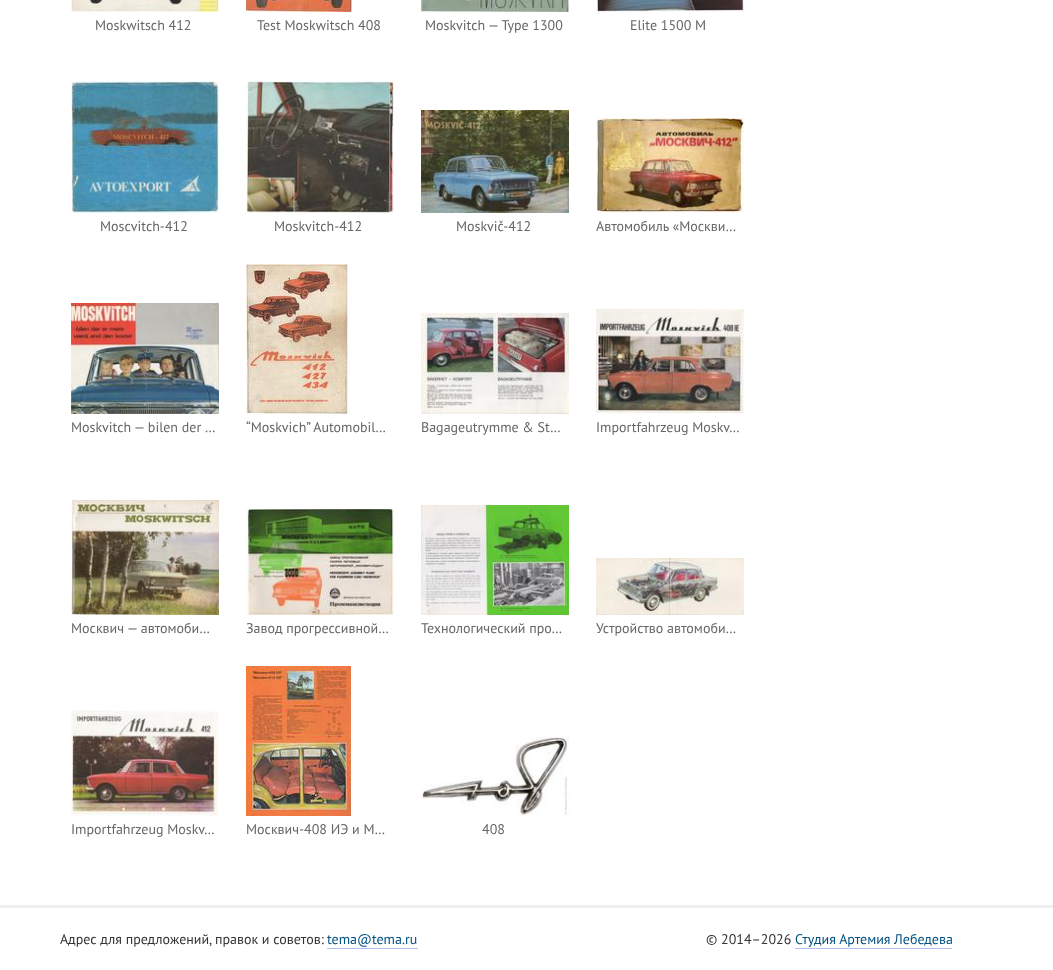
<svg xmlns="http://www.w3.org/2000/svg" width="1053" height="970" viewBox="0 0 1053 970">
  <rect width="100%" height="100%" fill="#fff"/>
  <image x="71" y="0" width="148" height="12" href="img/1.png"/>
  <image x="246" y="0" width="106" height="12" href="img/2.png"/>
  <image x="421" y="0" width="148" height="12" href="img/3.png"/>
  <image x="596" y="0" width="148" height="12" href="img/4.png"/>
  <image x="71" y="81" width="148" height="132" href="img/5.png"/>
  <image x="246" y="81" width="148" height="132" href="img/6.png"/>
  <image x="421" y="110" width="148" height="103" href="img/7.png"/>
  <image x="596" y="118" width="148" height="95" href="img/8.png"/>
  <image x="71" y="303" width="148" height="111" href="img/9.png"/>
  <image x="246" y="264" width="102" height="150" href="img/10.png"/>
  <image x="421" y="313" width="148" height="101" href="img/11.png"/>
  <image x="596" y="308" width="148" height="106" href="img/12.png"/>
  <image x="71" y="500" width="148" height="115" href="img/13.png"/>
  <image x="246" y="509" width="148" height="106" href="img/14.png"/>
  <image x="421" y="505" width="148" height="110" href="img/15.png"/>
  <image x="596" y="558" width="148" height="57" href="img/16.png"/>
  <image x="71" y="710" width="148" height="106" href="img/17.png"/>
  <image x="246" y="666" width="105" height="150" href="img/18.png"/>
  <image x="421" y="736" width="148" height="80" href="img/19.png"/>
  <path d="M0 905h1053v3H0z" fill="#eee"/>
  <path d="M327 948h91v1H327z" fill="#b0c0f0"/>
  <path d="M795 948h157v1H795z" fill="#b0c0f0"/>
  <g font-family="PT Sans" font-size="14" fill="#666">
    <text x="95" y="30">Moskwitsch 412</text>
    <text x="257" y="30">Test Moskwitsch 408</text>
    <text x="425" y="30">Moskvitch — Type 1300</text>
    <text x="630" y="30">Elite 1500 M</text>
    <text x="100" y="231">Moscvitch-412</text>
    <text x="274" y="231">Moskvitch-412</text>
    <text x="456" y="231">Moskvič-412</text>
    <text x="596" y="231">Автомобиль «Москви…</text>
    <text x="71" y="432">Moskvitch — bilen der …</text>
    <text x="246" y="432">“Moskvich” Automobil…</text>
    <text x="421" y="432">Bagageutrymme &amp; St…</text>
    <text x="596" y="432">Importfahrzeug Moskv…</text>
    <text x="71" y="633">Москвич — автомоби…</text>
    <text x="246" y="633">Завод прогрессивной…</text>
    <text x="421" y="633">Технологический про…</text>
    <text x="596" y="633">Устройство автомоби…</text>
    <text x="71" y="834">Importfahrzeug Moskv…</text>
    <text x="246" y="834">Москвич-408 ИЭ и М…</text>
    <text x="482" y="834">408</text>
  </g>
  <text x="60" y="944" font-family="PT Sans" font-size="14" fill="#333">Адрес для предложений, правок и советов:</text>
  <text x="327" y="944" font-family="PT Sans" font-size="14" fill="#005080">tema@tema.ru</text>
  <text x="706" y="944" font-family="PT Sans" font-size="14" fill="#333">© 2014–2026</text>
  <text x="795" y="944" font-family="PT Sans" font-size="14" fill="#005080">Студия Артемия Лебедева</text>
</svg>
